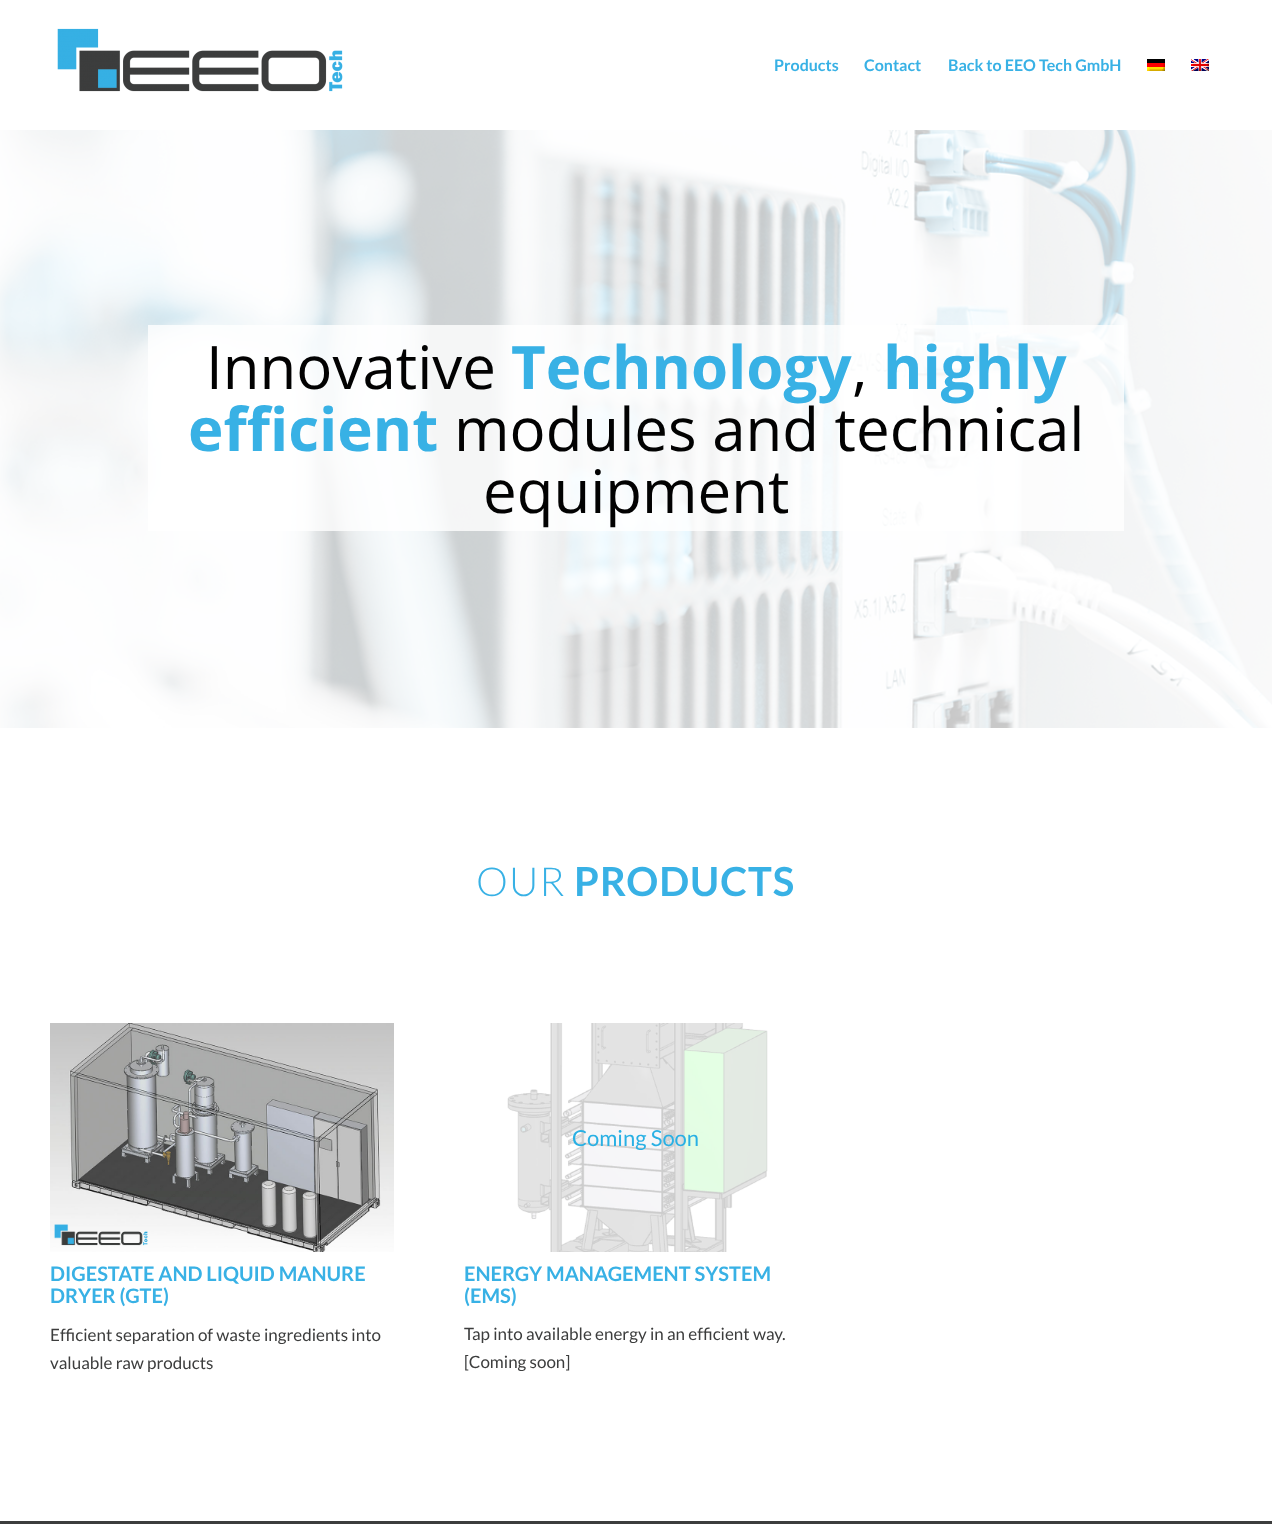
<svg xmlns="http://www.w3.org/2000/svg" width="1272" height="1524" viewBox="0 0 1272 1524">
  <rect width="100%" height="100%" fill="#fff"/>
  <image x="57" y="28" width="286" height="64" href="img/1.png"/>
  <image x="1147" y="59" width="18" height="12" href="img/2.png"/>
  <image x="1191" y="59" width="18" height="12" href="img/3.png"/>
  <image x="0" y="130" width="1272" height="598" href="img/4.png"/>
  <path d="M148 325h976v206H148z" fill="#ffffffc9"/>
  <image x="50" y="1023" width="344" height="229" href="img/5.png"/>
  <image x="507" y="1023" width="261" height="229" href="img/6.png"/>
  <path d="M0 1521h1272v3H0z" fill="#3c3d3d"/>
  <g font-family="Lato" font-size="16" font-weight="bold" fill="#38b1e5">
    <text x="774" y="71">Products</text>
    <text x="864" y="71">Contact</text>
    <text x="948" y="71">Back to EEO Tech GmbH</text>
  </g>
  <text x="206" y="389" font-family="Open Sans" font-size="60" fill="#020202">Innovative</text>
  <text x="511" y="389" font-family="Open Sans" font-size="60" font-weight="bold" fill="#38b1e5">Technology</text>
  <text x="852" y="389" font-family="Open Sans" font-size="60" fill="#020202">,</text>
  <g font-family="Open Sans" font-size="60" font-weight="bold" fill="#38b1e5">
    <text x="883" y="389">highly</text>
    <text x="188" y="451">efficient</text>
  </g>
  <g font-family="Open Sans" font-size="60" fill="#020202">
    <text x="454" y="451">modules and technical</text>
    <text x="483" y="513">equipment</text>
  </g>
  <text x="476" y="896" font-family="Lato" font-size="40" font-weight="300" letter-spacing="1" fill="#38b1e5">OUR</text>
  <text x="574" y="896" font-family="Lato" font-size="40" font-weight="bold" letter-spacing="1" fill="#38b1e5">PRODUCTS</text>
  <g font-family="Lato" font-size="20" font-weight="bold" fill="#38b1e5">
    <text x="50" y="1281">DIGESTATE AND LIQUID MANURE</text>
    <text x="50" y="1303">DRYER (GTE)</text>
  </g>
  <g font-family="Lato" font-size="17" fill="#3c3d3d">
    <text x="50" y="1341">Efficient separation of waste ingredients into</text>
    <text x="50" y="1369">valuable raw products</text>
  </g>
  <text x="572" y="1146" font-family="Lato" font-size="22" fill="#29b0e4">Coming Soon</text>
  <g font-family="Lato" font-size="20" font-weight="bold" fill="#38b1e5">
    <text x="464" y="1281">ENERGY MANAGEMENT SYSTEM</text>
    <text x="464" y="1303">(EMS)</text>
  </g>
  <g font-family="Lato" font-size="17" fill="#3c3d3d">
    <text x="464" y="1340">Tap into available energy in an efficient way.</text>
    <text x="464" y="1368">[Coming soon]</text>
  </g>
</svg>
